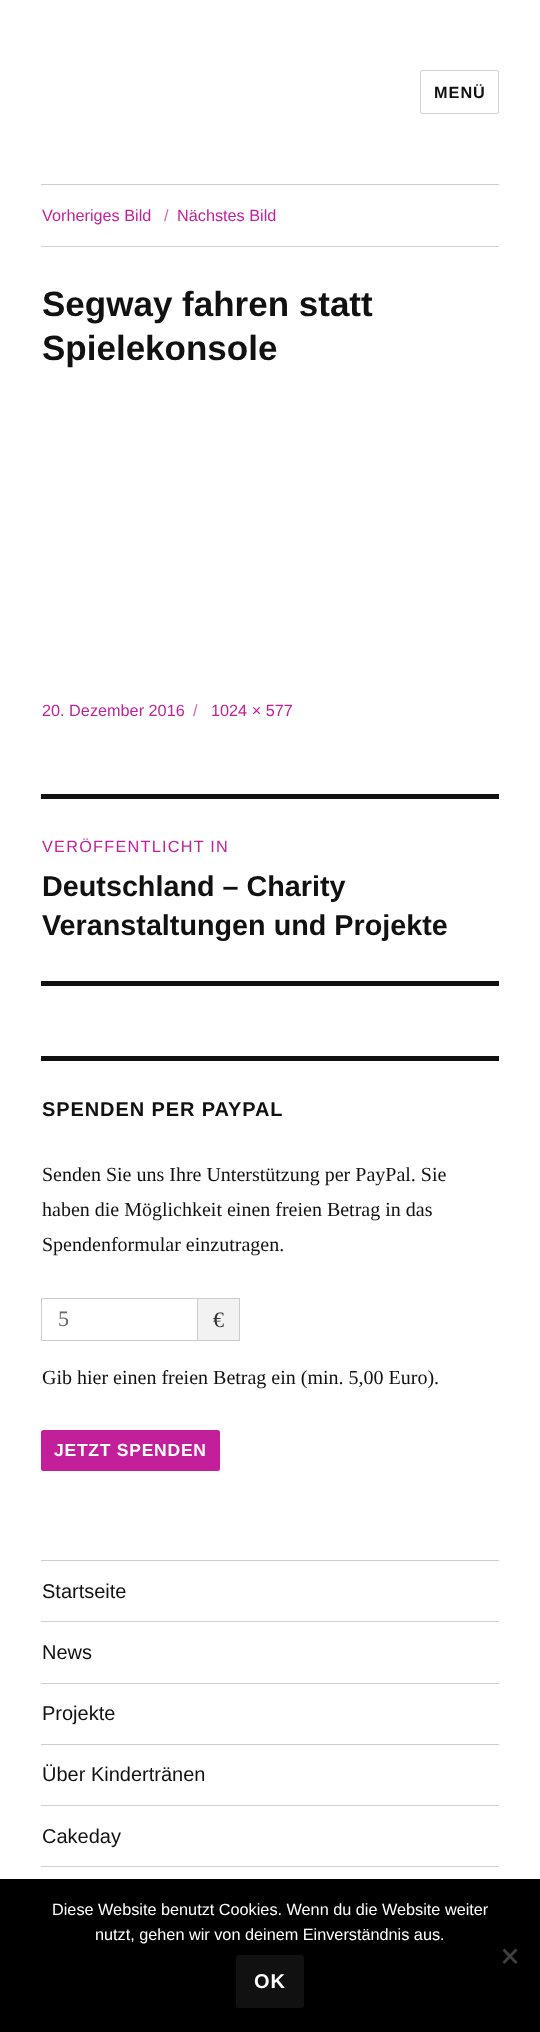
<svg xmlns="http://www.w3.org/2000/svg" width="540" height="2032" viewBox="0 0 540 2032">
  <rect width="100%" height="100%" fill="#fff"/>
  <rect x="420.5" y="70.5" width="78" height="43" rx="2" fill="none" stroke="#cfcfcf"/>
  <path d="M41 184h458v1H41z" fill="#cfcfcf"/>
  <path d="M41 246h458v1H41z" fill="#cfcfcf"/>
  <path d="M41 794h458v5H41z" fill="#111"/>
  <path d="M41 981h458v5H41z" fill="#111"/>
  <path d="M41 1056h458v5H41z" fill="#111"/>
  <path d="M41.5 1298.5h156v42H41.5z" fill="none" stroke="#ccc"/>
  <path d="M198 1299h41v41H198z" fill="#f2f2f2"/>
  <path d="M198 1298h42v1H198z" fill="#ccc"/>
  <path d="M239 1298h1v43H239z" fill="#ccc"/>
  <path d="M198 1340h42v1H198z" fill="#ccc"/>
  <rect x="41" y="1430" width="179" height="41" rx="2.5" fill="#c41f9b"/>
  <path d="M41 1560h458v1H41z" fill="#cfcfcf"/>
  <path d="M41 1621h458v1H41z" fill="#cfcfcf"/>
  <path d="M41 1683h458v1H41z" fill="#cfcfcf"/>
  <path d="M41 1744h458v1H41z" fill="#cfcfcf"/>
  <path d="M41 1805h458v1H41z" fill="#cfcfcf"/>
  <path d="M41 1866h458v1H41z" fill="#cfcfcf"/>
  <path d="M0 1879h540v153H0z" fill="#000"/>
  <path d="M515.5 1948.5L517.5 1950.5L504.5 1964L502.5 1962Z" fill="#404040"/>
  <path d="M502.5 1950.5L504.5 1948.5L517.5 1962L515.5 1964Z" fill="#404040"/>
  <rect x="236" y="1955" width="68" height="53" rx="2.5" fill="#111"/>
  <text x="434" y="98" font-family="Liberation Sans" font-size="16.25" font-weight="bold" letter-spacing="1" fill="#111">MENÜ</text>
  <text x="42" y="221" font-family="Liberation Sans" font-size="16.25" fill="#c41f9b">Vorheriges Bild</text>
  <text x="164" y="221" font-family="Liberation Sans" font-size="16.25" fill="#d662b9">/</text>
  <text x="177" y="221" font-family="Liberation Sans" font-size="16.25" fill="#c41f9b">Nächstes Bild</text>
  <g font-family="Liberation Sans" font-size="35" font-weight="bold" fill="#111">
    <text x="42" y="316">Segway fahren statt</text>
    <text x="42" y="360">Spielekonsole</text>
  </g>
  <text x="42" y="716" font-family="Liberation Sans" font-size="16.25" fill="#c41f9b">20. Dezember 2016</text>
  <text x="193" y="716" font-family="Liberation Sans" font-size="16.25" fill="#d662b9">/</text>
  <text x="211" y="716" font-family="Liberation Sans" font-size="16.25" fill="#c41f9b">1024 × 577</text>
  <text x="42" y="852" font-family="Liberation Sans" font-size="16.25" letter-spacing="1.25" fill="#c41f9b">VERÖFFENTLICHT IN</text>
  <g font-family="Liberation Sans" font-size="28.75" font-weight="bold" fill="#111">
    <text x="42" y="896">Deutschland – Charity</text>
    <text x="42" y="935">Veranstaltungen und Projekte</text>
  </g>
  <text x="42" y="1116" font-family="Liberation Sans" font-size="20" font-weight="bold" letter-spacing="0.9" fill="#111">SPENDEN PER PAYPAL</text>
  <g font-family="Liberation Serif" font-size="20" fill="#111">
    <text x="42" y="1181">Senden Sie uns Ihre Unterstützung per PayPal. Sie</text>
    <text x="42" y="1216">haben die Möglichkeit einen freien Betrag in das</text>
    <text x="42" y="1251">Spendenformular einzutragen.</text>
  </g>
  <text x="58" y="1326" font-family="Liberation Serif" font-size="22" fill="#686868">5</text>
  <text x="213" y="1327" font-family="Liberation Serif" font-size="22" fill="#333">€</text>
  <text x="42" y="1384" font-family="Liberation Serif" font-size="20" fill="#111">Gib hier einen freien Betrag ein (min. 5,00 Euro).</text>
  <text x="54" y="1456" font-family="Liberation Sans" font-size="17.5" font-weight="bold" letter-spacing="0.75" fill="#fff">JETZT SPENDEN</text>
  <g font-family="Liberation Sans" font-size="20" fill="#111">
    <text x="42" y="1598">Startseite</text>
    <text x="42" y="1659">News</text>
    <text x="42" y="1720">Projekte</text>
    <text x="42" y="1781">Über Kindertränen</text>
    <text x="42" y="1843">Cakeday</text>
  </g>
  <g font-family="Liberation Sans" font-size="16.25" fill="#fff">
    <text x="52" y="1915">Diese Website benutzt Cookies. Wenn du die Website weiter</text>
    <text x="95" y="1940">nutzt, gehen wir von deinem Einverständnis aus.</text>
  </g>
  <text x="254" y="1988" font-family="Liberation Sans" font-size="20" font-weight="bold" letter-spacing="0.9" fill="#fff">OK</text>
</svg>
